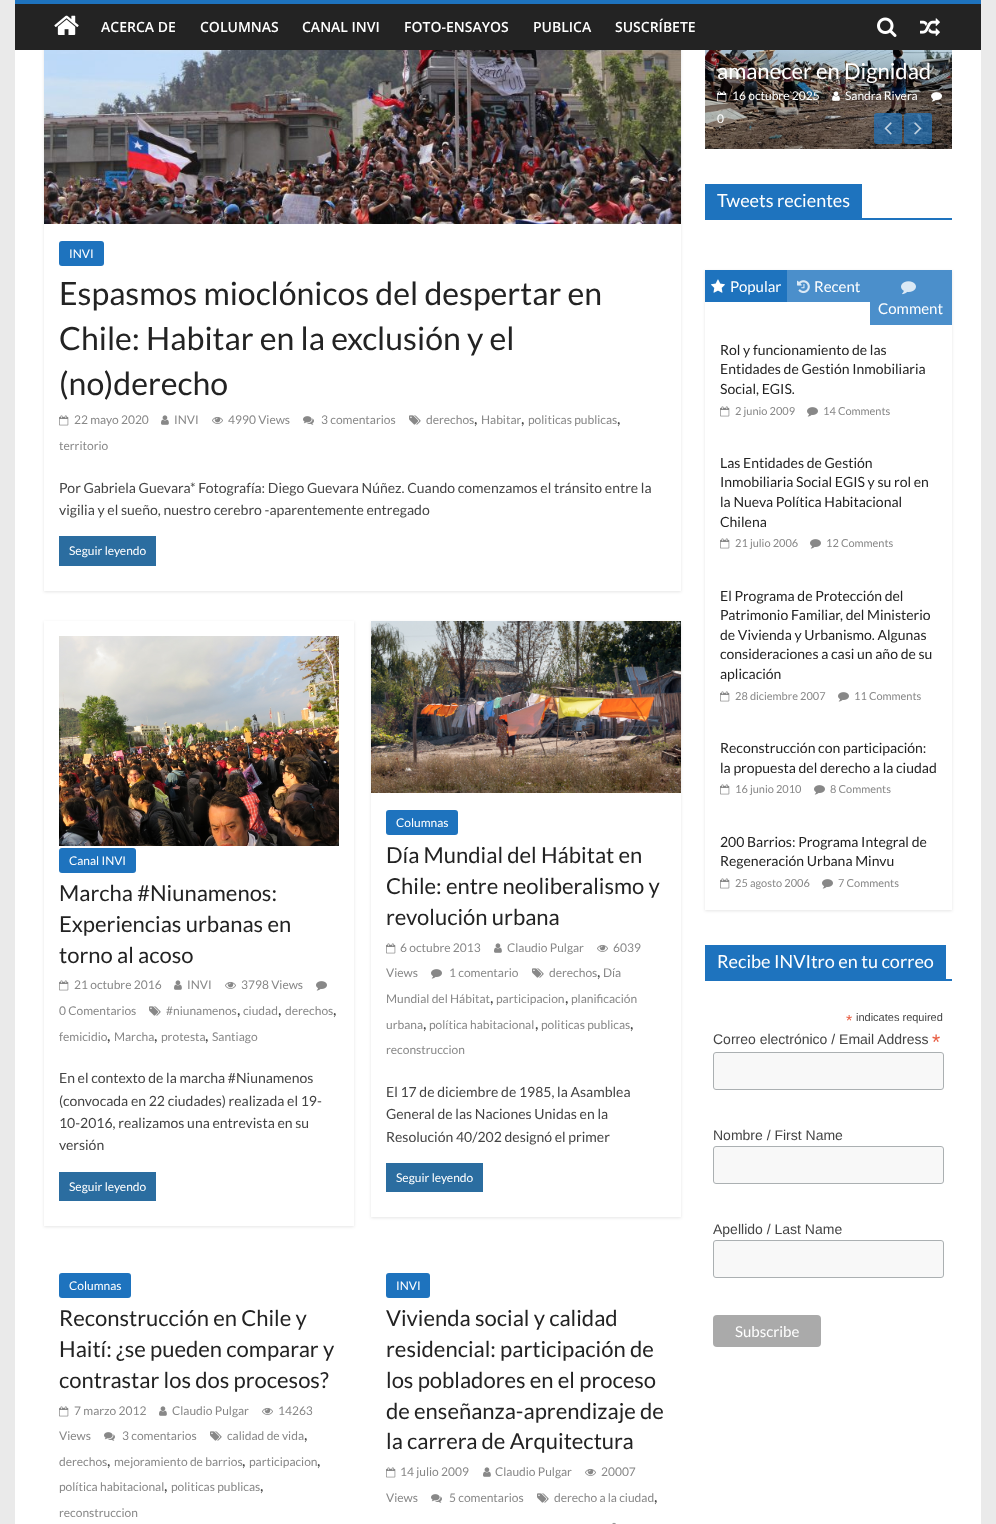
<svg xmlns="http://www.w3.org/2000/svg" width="996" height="1524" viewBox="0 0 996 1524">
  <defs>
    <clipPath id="clip1"><path d="M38 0H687V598H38ZM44-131H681V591H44Z" clip-rule="evenodd"/></clipPath>
    <clipPath id="clip2"><path d="M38 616H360V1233H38ZM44 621H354V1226H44Z" clip-rule="evenodd"/></clipPath>
    <clipPath id="clip3"><path d="M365 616H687V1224H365ZM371 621H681V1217H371Z" clip-rule="evenodd"/></clipPath>
    <linearGradient id="g1" gradientUnits="userSpaceOnUse" x1="829" y1="-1" x2="829" y2="149"><stop offset="0" stop-color="#000" stop-opacity="0"/><stop offset="1" stop-color="#000" stop-opacity="0.3"/></linearGradient>
    <clipPath id="clip4"><path d="M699 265H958V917H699ZM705 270H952V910H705Z" clip-rule="evenodd"/></clipPath>
  </defs>
  <rect width="100%" height="100%" fill="#eaeaea"/>
  <path d="M15 50h966v1474H15z" fill="#fff"/>
  <g clip-path="url(#clip1)">
    <path d="M44 -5h637v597H44z" fill="#0000001a" filter="blur(1.5px)"/>
  </g>
  <path d="M15 4h966v46H15z" fill="#232323"/>
  <path d="M15 0h966v4H15z" fill="#1e73be"/>
  <image x="54" y="15" width="25" height="20" href="img/1.png"/>
  <image x="877" y="17" width="20" height="20" href="img/2.png"/>
  <image x="920" y="18" width="20" height="18" href="img/3.png"/>
  <image x="44" y="50" width="637" height="174" href="img/4.png"/>
  <rect x="59" y="241" width="45" height="25" rx="3" fill="#1e73be"/>
  <image x="409" y="415" width="12" height="10" href="img/5.png"/>
  <image x="59" y="415" width="10" height="11" href="img/6.png"/>
  <image x="161" y="415" width="8" height="10" href="img/7.png"/>
  <image x="212" y="416" width="11" height="8" href="img/8.png"/>
  <image x="303" y="416" width="11" height="9" href="img/9.png"/>
  <path d="M59 536h97v30H59z" fill="#2b6da0"/>
  <g clip-path="url(#clip2)">
    <path d="M44 622h310v605H44z" fill="#0000001a" filter="blur(1.5px)"/>
  </g>
  <image x="59" y="636" width="280" height="210" href="img/10.png"/>
  <rect x="59" y="848" width="77" height="25" rx="3" fill="#1e73be"/>
  <image x="59" y="980" width="10" height="11" href="img/6.png"/>
  <image x="174" y="980" width="8" height="10" href="img/7.png"/>
  <image x="225" y="981" width="11" height="8" href="img/8.png"/>
  <image x="316" y="981" width="11" height="10" href="img/11.png"/>
  <image x="149" y="1006" width="12" height="10" href="img/5.png"/>
  <path d="M59 1172h97v29H59z" fill="#2b6da0"/>
  <g clip-path="url(#clip3)">
    <path d="M371 622h310v596H371z" fill="#0000001a" filter="blur(1.5px)"/>
  </g>
  <image x="371" y="621" width="310" height="172" href="img/12.png"/>
  <rect x="386" y="810" width="72" height="25" rx="3" fill="#1e73be"/>
  <image x="597" y="944" width="11" height="8" href="img/8.png"/>
  <image x="386" y="943" width="10" height="11" href="img/6.png"/>
  <image x="494" y="943" width="8" height="10" href="img/7.png"/>
  <image x="532" y="968" width="12" height="10" href="img/5.png"/>
  <image x="431" y="969" width="11" height="10" href="img/11.png"/>
  <path d="M386 1163h97v29H386z" fill="#2b6da0"/>
  <rect x="59" y="1273" width="72" height="25" rx="3" fill="#1e73be"/>
  <image x="262" y="1407" width="11" height="8" href="img/8.png"/>
  <image x="59" y="1406" width="10" height="11" href="img/6.png"/>
  <image x="159" y="1406" width="8" height="10" href="img/7.png"/>
  <image x="210" y="1431" width="12" height="10" href="img/5.png"/>
  <image x="104" y="1432" width="11" height="9" href="img/9.png"/>
  <rect x="386" y="1273" width="44" height="25" rx="3" fill="#1e73be"/>
  <image x="585" y="1468" width="11" height="8" href="img/8.png"/>
  <image x="386" y="1467" width="10" height="11" href="img/6.png"/>
  <image x="483" y="1467" width="8" height="10" href="img/7.png"/>
  <image x="431" y="1494" width="11" height="9" href="img/9.png"/>
  <image x="537" y="1493" width="12" height="10" href="img/5.png"/>
  <image x="705" y="53" width="1" height="96" href="img/13.png"/>
  <image x="705" y="50" width="247" height="99" href="img/14.png"/>
  <path d="M705 50h247v99H705z" fill="url(#g1)"/>
  <image x="717" y="91" width="10" height="11" href="img/15.png"/>
  <image x="832" y="91" width="8" height="10" href="img/16.png"/>
  <image x="931" y="92" width="11" height="10" href="img/17.png"/>
  <rect x="874" y="113" width="28" height="31" rx="3" fill="#1e73beb3"/>
  <image x="884" y="122" width="8" height="13" href="img/18.png"/>
  <rect x="904" y="113" width="28" height="31" rx="3" fill="#1e73beb3"/>
  <image x="914" y="122" width="8" height="13" href="img/19.png"/>
  <path d="M705 218h247v2H705z" fill="#1e73be"/>
  <path d="M705 184h157v34H705z" fill="#1e73be"/>
  <g clip-path="url(#clip4)">
    <path d="M705 271h247v640H705z" fill="#0000001a" filter="blur(1.5px)"/>
  </g>
  <path d="M705 270h82v32H705z" fill="#1e73be"/>
  <image x="711" y="279" width="14" height="14" href="img/20.png"/>
  <path d="M787 270h83v32H787z" fill="#4b8fcb"/>
  <image x="797" y="280" width="13" height="14" href="img/21.png"/>
  <path d="M870 270h82v55H870z" fill="#4b8fcb"/>
  <image x="901" y="281" width="15" height="14" href="img/22.png"/>
  <image x="720" y="406" width="10" height="11" href="img/6.png"/>
  <image x="807" y="407" width="11" height="10" href="img/11.png"/>
  <image x="720" y="538" width="10" height="11" href="img/6.png"/>
  <image x="810" y="539" width="11" height="10" href="img/11.png"/>
  <image x="720" y="691" width="10" height="11" href="img/6.png"/>
  <image x="838" y="692" width="11" height="10" href="img/11.png"/>
  <image x="720" y="784" width="10" height="11" href="img/6.png"/>
  <image x="814" y="785" width="11" height="10" href="img/11.png"/>
  <image x="720" y="878" width="10" height="11" href="img/6.png"/>
  <image x="822" y="879" width="11" height="10" href="img/11.png"/>
  <path d="M705 979h247v2H705z" fill="#1e73be"/>
  <path d="M705 945h241v34H705z" fill="#1e73be"/>
  <rect x="713.5" y="1052.5" width="230" height="37" rx="2.5" fill="#f8f8f8" stroke="#abb0b2"/>
  <rect x="713.5" y="1146.5" width="230" height="37" rx="2.5" fill="#f8f8f8" stroke="#abb0b2"/>
  <rect x="713.5" y="1240.5" width="230" height="37" rx="2.5" fill="#f8f8f8" stroke="#abb0b2"/>
  <rect x="713" y="1315" width="108" height="32" rx="4" fill="#aaa"/>
  <g font-family="Open Sans" font-size="14" font-weight="600" fill="#fff">
    <text x="101" y="32">ACERCA DE</text>
    <text x="200" y="32">COLUMNAS</text>
    <text x="302" y="32">CANAL INVI</text>
    <text x="404" y="32">FOTO-ENSAYOS</text>
    <text x="533" y="32">PUBLICA</text>
    <text x="615" y="32">SUSCRÍBETE</text>
  </g>
  <text x="69" y="258" font-family="Lato" font-size="12" fill="#fff">INVI</text>
  <g font-family="Lato" font-size="32" fill="#232323">
    <text x="59" y="305">Espasmos mioclónicos del despertar en</text>
    <text x="59" y="350">Chile: Habitar en la exclusión y el</text>
    <text x="59" y="395">(no)derecho</text>
  </g>
  <text x="426" y="424" font-family="Lato" font-size="12" fill="#888">derechos</text>
  <text x="474" y="424" font-family="Lato" font-size="16" fill="#444">,</text>
  <text x="481" y="424" font-family="Lato" font-size="12" fill="#888">Habitar</text>
  <text x="521" y="424" font-family="Lato" font-size="16" fill="#444">,</text>
  <text x="528" y="424" font-family="Lato" font-size="12" fill="#888">politicas publicas</text>
  <text x="617" y="424" font-family="Lato" font-size="16" fill="#444">,</text>
  <g font-family="Lato" font-size="12" fill="#888">
    <text x="59" y="450">territorio</text>
    <text x="74" y="424">22 mayo 2020</text>
    <text x="174" y="424">INVI</text>
    <text x="228" y="424">4990 Views</text>
    <text x="321" y="424">3 comentarios</text>
  </g>
  <g font-family="Lato" font-size="14" fill="#444">
    <text x="59" y="493">Por Gabriela Guevara* Fotografía: Diego Guevara Núñez. Cuando comenzamos el tránsito entre la</text>
    <text x="59" y="515">vigilia y el sueño, nuestro cerebro -aparentemente entregado</text>
  </g>
  <g font-family="Lato" font-size="12" fill="#fff">
    <text x="69" y="555">Seguir leyendo</text>
    <text x="69" y="865">Canal INVI</text>
  </g>
  <g font-family="Lato" font-size="22" fill="#232323">
    <text x="59" y="901">Marcha #Niunamenos:</text>
    <text x="59" y="932">Experiencias urbanas en</text>
    <text x="59" y="963">torno al acoso</text>
  </g>
  <g font-family="Lato" font-size="12" fill="#888">
    <text x="74" y="989">21 octubre 2016</text>
    <text x="187" y="989">INVI</text>
    <text x="241" y="989">3798 Views</text>
    <text x="59" y="1015">0 Comentarios</text>
    <text x="166" y="1015">#niunamenos</text>
  </g>
  <text x="237" y="1015" font-family="Lato" font-size="16" fill="#444">,</text>
  <text x="243" y="1015" font-family="Lato" font-size="12" fill="#888">ciudad</text>
  <text x="278" y="1015" font-family="Lato" font-size="16" fill="#444">,</text>
  <text x="285" y="1015" font-family="Lato" font-size="12" fill="#888">derechos</text>
  <text x="333" y="1015" font-family="Lato" font-size="16" fill="#444">,</text>
  <text x="59" y="1041" font-family="Lato" font-size="12" fill="#888">femicidio</text>
  <text x="107" y="1041" font-family="Lato" font-size="16" fill="#444">,</text>
  <text x="114" y="1041" font-family="Lato" font-size="12" fill="#888">Marcha</text>
  <text x="154" y="1041" font-family="Lato" font-size="16" fill="#444">,</text>
  <text x="161" y="1041" font-family="Lato" font-size="12" fill="#888">protesta</text>
  <text x="205" y="1041" font-family="Lato" font-size="16" fill="#444">,</text>
  <text x="212" y="1041" font-family="Lato" font-size="12" fill="#888">Santiago</text>
  <g font-family="Lato" font-size="14" fill="#444">
    <text x="59" y="1083">En el contexto de la marcha #Niunamenos</text>
    <text x="59" y="1106">(convocada en 22 ciudades) realizada el 19-</text>
    <text x="59" y="1128">10-2016, realizamos una entrevista en su</text>
    <text x="59" y="1150">versión</text>
  </g>
  <g font-family="Lato" font-size="12" fill="#fff">
    <text x="69" y="1191">Seguir leyendo</text>
    <text x="396" y="827">Columnas</text>
  </g>
  <g font-family="Lato" font-size="22" fill="#232323">
    <text x="386" y="863">Día Mundial del Hábitat en</text>
    <text x="386" y="894">Chile: entre neoliberalismo y</text>
    <text x="386" y="925">revolución urbana</text>
  </g>
  <g font-family="Lato" font-size="12" fill="#888">
    <text x="613" y="952">6039</text>
    <text x="386" y="977">Views</text>
    <text x="400" y="952">6 octubre 2013</text>
    <text x="507" y="952">Claudio Pulgar</text>
    <text x="549" y="977">derechos</text>
  </g>
  <text x="597" y="977" font-family="Lato" font-size="16" fill="#444">,</text>
  <g font-family="Lato" font-size="12" fill="#888">
    <text x="603" y="977">Día</text>
    <text x="386" y="1003">Mundial del Hábitat</text>
  </g>
  <text x="490" y="1003" font-family="Lato" font-size="16" fill="#444">,</text>
  <text x="496" y="1003" font-family="Lato" font-size="12" fill="#888">participacion</text>
  <text x="565" y="1003" font-family="Lato" font-size="16" fill="#444">,</text>
  <g font-family="Lato" font-size="12" fill="#888">
    <text x="571" y="1003">planificación</text>
    <text x="386" y="1029">urbana</text>
  </g>
  <text x="423" y="1029" font-family="Lato" font-size="16" fill="#444">,</text>
  <text x="429" y="1029" font-family="Lato" font-size="12" fill="#888">política habitacional</text>
  <text x="535" y="1029" font-family="Lato" font-size="16" fill="#444">,</text>
  <text x="541" y="1029" font-family="Lato" font-size="12" fill="#888">politicas publicas</text>
  <text x="630" y="1029" font-family="Lato" font-size="16" fill="#444">,</text>
  <g font-family="Lato" font-size="12" fill="#888">
    <text x="386" y="1054">reconstruccion</text>
    <text x="449" y="977">1 comentario</text>
  </g>
  <g font-family="Lato" font-size="14" fill="#444">
    <text x="386" y="1097">El 17 de diciembre de 1985, la Asamblea</text>
    <text x="386" y="1119">General de las Naciones Unidas en la</text>
    <text x="386" y="1142">Resolución 40/202 designó el primer</text>
  </g>
  <g font-family="Lato" font-size="12" fill="#fff">
    <text x="396" y="1182">Seguir leyendo</text>
    <text x="69" y="1290">Columnas</text>
  </g>
  <g font-family="Lato" font-size="22" fill="#232323">
    <text x="59" y="1326">Reconstrucción en Chile y</text>
    <text x="59" y="1357">Haití: ¿se pueden comparar y</text>
    <text x="59" y="1388">contrastar los dos procesos?</text>
  </g>
  <g font-family="Lato" font-size="12" fill="#888">
    <text x="278" y="1415">14263</text>
    <text x="59" y="1440">Views</text>
    <text x="74" y="1415">7 marzo 2012</text>
    <text x="172" y="1415">Claudio Pulgar</text>
    <text x="227" y="1440">calidad de vida</text>
  </g>
  <text x="304" y="1440" font-family="Lato" font-size="16" fill="#444">,</text>
  <text x="59" y="1466" font-family="Lato" font-size="12" fill="#888">derechos</text>
  <text x="107" y="1466" font-family="Lato" font-size="16" fill="#444">,</text>
  <text x="114" y="1466" font-family="Lato" font-size="12" fill="#888">mejoramiento de barrios</text>
  <text x="242" y="1466" font-family="Lato" font-size="16" fill="#444">,</text>
  <text x="249" y="1466" font-family="Lato" font-size="12" fill="#888">participacion</text>
  <text x="317" y="1466" font-family="Lato" font-size="16" fill="#444">,</text>
  <text x="59" y="1491" font-family="Lato" font-size="12" fill="#888">política habitacional</text>
  <text x="164" y="1491" font-family="Lato" font-size="16" fill="#444">,</text>
  <text x="171" y="1491" font-family="Lato" font-size="12" fill="#888">politicas publicas</text>
  <text x="260" y="1491" font-family="Lato" font-size="16" fill="#444">,</text>
  <g font-family="Lato" font-size="12" fill="#888">
    <text x="59" y="1517">reconstruccion</text>
    <text x="122" y="1440">3 comentarios</text>
  </g>
  <text x="396" y="1290" font-family="Lato" font-size="12" fill="#fff">INVI</text>
  <g font-family="Lato" font-size="22" fill="#232323">
    <text x="386" y="1326">Vivienda social y calidad</text>
    <text x="386" y="1357">residencial: participación de</text>
    <text x="386" y="1388">los pobladores en el proceso</text>
    <text x="386" y="1419">de enseñanza-aprendizaje de</text>
    <text x="386" y="1449">la carrera de Arquitectura</text>
  </g>
  <g font-family="Lato" font-size="12" fill="#888">
    <text x="601" y="1476">20007</text>
    <text x="386" y="1502">Views</text>
    <text x="400" y="1476">14 julio 2009</text>
    <text x="495" y="1476">Claudio Pulgar</text>
    <text x="449" y="1502">5 comentarios</text>
    <text x="554" y="1502">derecho a la ciudad</text>
  </g>
  <text x="654" y="1502" font-family="Lato" font-size="16" fill="#444">,</text>
  <text x="612" y="1527" font-family="Lato" font-size="12" fill="#888">-</text>
  <text x="717" y="79" font-family="Lato" font-size="22" fill="#fff">amanecer en Dignidad</text>
  <g font-family="Lato" font-size="12" fill="#fff">
    <text x="732" y="100">16 octubre 2025</text>
    <text x="845" y="100">Sandra Rivera</text>
    <text x="717" y="123">0</text>
  </g>
  <text x="717" y="207" font-family="Lato" font-size="18" fill="#fff">Tweets recientes</text>
  <g font-family="Lato" font-size="15" fill="#fff">
    <text x="730" y="292">Popular</text>
    <text x="814" y="292">Recent</text>
    <text x="878" y="314">Comment</text>
  </g>
  <g font-family="Lato" font-size="14" fill="#232323">
    <text x="720" y="355">Rol y funcionamiento de las</text>
    <text x="720" y="374">Entidades de Gestión Inmobiliaria</text>
    <text x="720" y="394">Social, EGIS.</text>
  </g>
  <g font-family="Lato" font-size="11" fill="#888">
    <text x="735" y="415">2 junio 2009</text>
    <text x="823" y="415">14 Comments</text>
  </g>
  <g font-family="Lato" font-size="14" fill="#232323">
    <text x="720" y="468">Las Entidades de Gestión</text>
    <text x="720" y="487">Inmobiliaria Social EGIS y su rol en</text>
    <text x="720" y="507">la Nueva Política Habitacional</text>
    <text x="720" y="527">Chilena</text>
  </g>
  <g font-family="Lato" font-size="11" fill="#888">
    <text x="735" y="547">21 julio 2006</text>
    <text x="826" y="547">12 Comments</text>
  </g>
  <g font-family="Lato" font-size="14" fill="#232323">
    <text x="720" y="601">El Programa de Protección del</text>
    <text x="720" y="620">Patrimonio Familiar, del Ministerio</text>
    <text x="720" y="640">de Vivienda y Urbanismo. Algunas</text>
    <text x="720" y="659">consideraciones a casi un año de su</text>
    <text x="720" y="679">aplicación</text>
  </g>
  <g font-family="Lato" font-size="11" fill="#888">
    <text x="735" y="700">28 diciembre 2007</text>
    <text x="854" y="700">11 Comments</text>
  </g>
  <g font-family="Lato" font-size="14" fill="#232323">
    <text x="720" y="753">Reconstrucción con participación:</text>
    <text x="720" y="773">la propuesta del derecho a la ciudad</text>
  </g>
  <g font-family="Lato" font-size="11" fill="#888">
    <text x="735" y="793">16 junio 2010</text>
    <text x="830" y="793">8 Comments</text>
  </g>
  <g font-family="Lato" font-size="14" fill="#232323">
    <text x="720" y="847">200 Barrios: Programa Integral de</text>
    <text x="720" y="866">Regeneración Urbana Minvu</text>
  </g>
  <g font-family="Lato" font-size="11" fill="#888">
    <text x="735" y="887">25 agosto 2006</text>
    <text x="838" y="887">7 Comments</text>
  </g>
  <text x="717" y="968" font-family="Lato" font-size="18" fill="#fff">Recibe INVItro en tu correo</text>
  <text x="846" y="1026" font-family="Liberation Sans" font-size="16" fill="#e85c41">*</text>
  <text x="856" y="1021" font-family="Liberation Sans" font-size="11" fill="#444">indicates required</text>
  <text x="713" y="1044" font-family="Liberation Sans" font-size="14" fill="#444">Correo electrónico / Email Address</text>
  <text x="932" y="1049" font-family="Liberation Sans" font-size="21" fill="#e85c41">*</text>
  <g font-family="Liberation Sans" font-size="14" fill="#444">
    <text x="713" y="1140">Nombre / First Name</text>
    <text x="713" y="1234">Apellido / Last Name</text>
  </g>
  <text x="735" y="1337" font-family="Lato" font-size="15" fill="#fff">Subscribe</text>
</svg>
